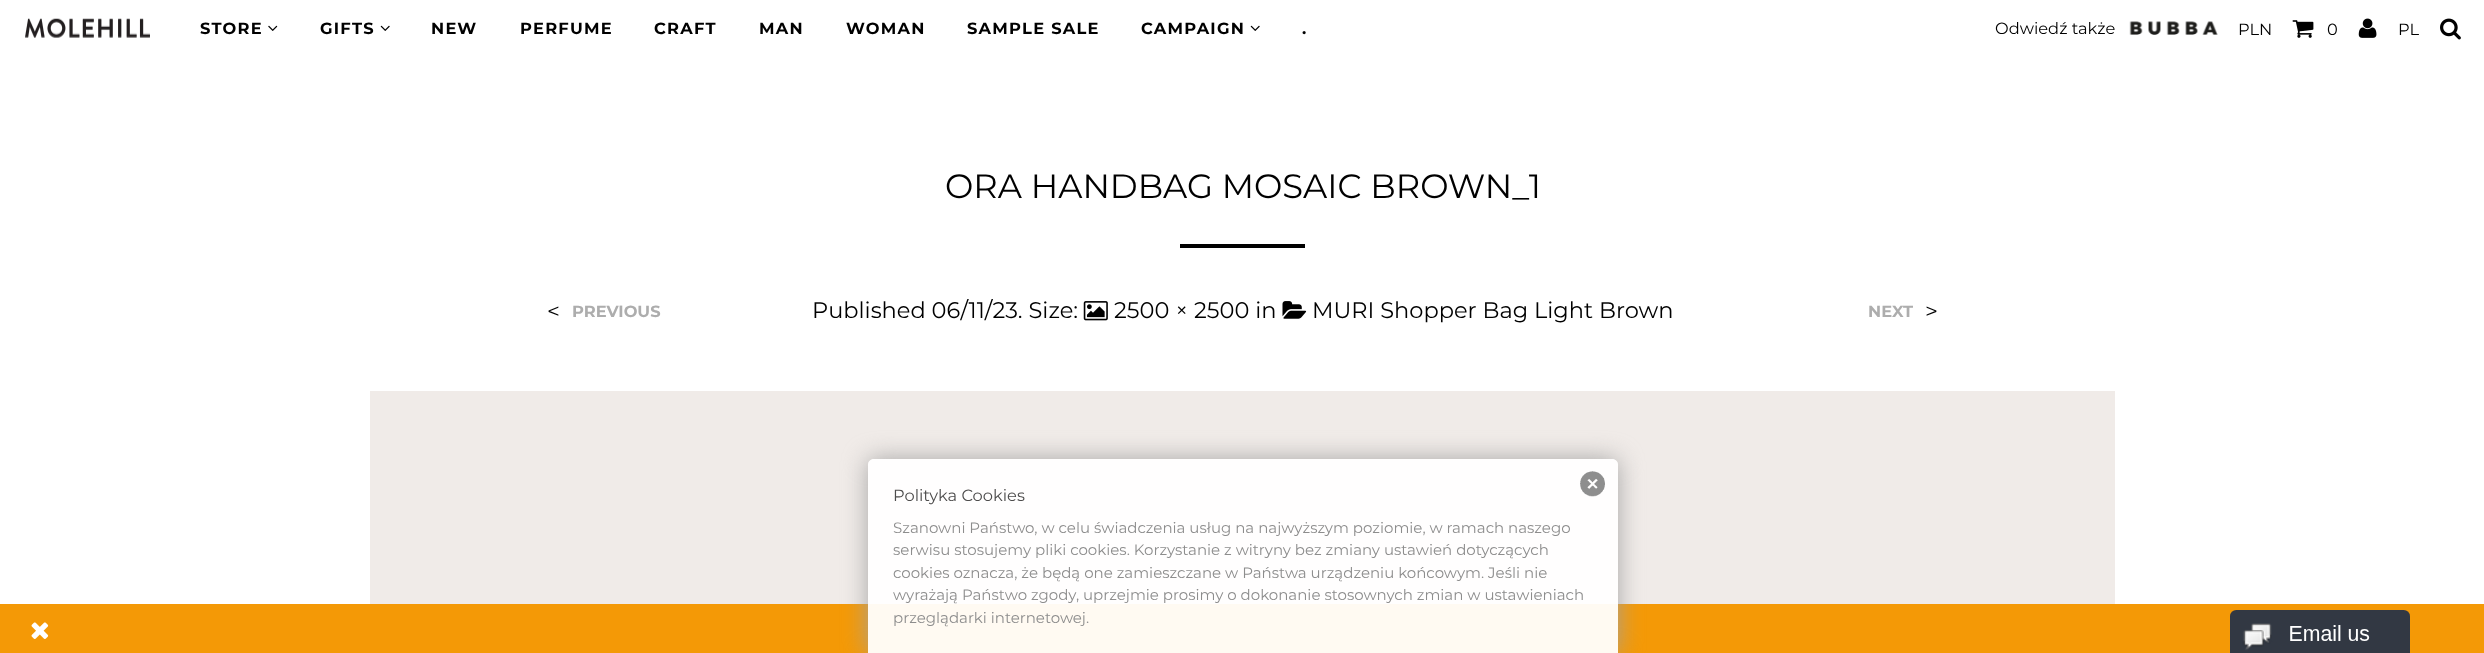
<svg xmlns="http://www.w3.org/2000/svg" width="2484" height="653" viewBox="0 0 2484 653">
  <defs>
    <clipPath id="clip1"><path d="M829 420H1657V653H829ZM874 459H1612C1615.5 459 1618 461.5 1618 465V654H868V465C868 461.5 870.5 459 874 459Z" clip-rule="evenodd"/></clipPath>
  </defs>
  <rect width="100%" height="100%" fill="#fff"/>
  <image x="25" y="18" width="125" height="20" href="img/1.png"/>
  <image x="268" y="25" width="10" height="6" href="img/2.png"/>
  <image x="380" y="25" width="10" height="6" href="img/3.png"/>
  <image x="1250" y="25" width="10" height="6" href="img/3.png"/>
  <image x="2129" y="21" width="89" height="14" href="img/4.png"/>
  <image x="2292" y="20" width="22" height="18" href="img/5.png"/>
  <image x="2358" y="18" width="19" height="20" href="img/6.png"/>
  <image x="2440" y="18" width="21" height="22" href="img/7.png"/>
  <path d="M1180 244h125v4H1180z" fill="#000"/>
  <image x="1083" y="301" width="25" height="20" href="img/8.png"/>
  <image x="1282" y="301" width="25" height="18" href="img/9.png"/>
  <path d="M370 391h1745v213H370z" fill="#f0ebe8"/>
  <path d="M0 604h2484v49H0z" fill="#f49906"/>
  <g clip-path="url(#clip1)">
    <rect x="868" y="459" width="750" height="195" rx="6" fill="#a1a1a1f2" filter="blur(12.5px)"/>
  </g>
  <path d="M874 459H1612C1615.5 459 1618 461.5 1618 465V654H868V465C868 461.5 870.5 459 874 459Z" fill="#fffffff2"/>
  <image x="1580" y="471" width="25" height="26" href="img/10.png"/>
  <image x="31" y="622" width="18" height="17" href="img/11.png"/>
  <image x="2230" y="610" width="180" height="43" href="img/12.png"/>
  <g font-family="Montserrat" font-size="16.25" font-weight="bold" letter-spacing="1.25" fill="#000">
    <text x="200" y="34">STORE</text>
    <text x="320" y="34">GIFTS</text>
    <text x="431" y="34">NEW</text>
    <text x="520" y="34">PERFUME</text>
    <text x="654" y="34">CRAFT</text>
    <text x="759" y="34">MAN</text>
    <text x="846" y="34">WOMAN</text>
    <text x="967" y="34">SAMPLE SALE</text>
    <text x="1141" y="34">CAMPAIGN</text>
    <text x="1302" y="34">.</text>
  </g>
  <g font-family="Montserrat" font-size="16.25" fill="#000">
    <text x="1995" y="34">Odwiedź także</text>
    <text x="2238" y="35">PLN</text>
    <text x="2327" y="35">0</text>
    <text x="2398" y="35">PL</text>
  </g>
  <text x="945" y="198" font-family="Montserrat" font-size="33.75" fill="#000">ORA HANDBAG MOSAIC BROWN_1</text>
  <g font-family="Montserrat" font-size="22.5" fill="#000">
    <text x="812" y="318">Published 06/11/23. Size:</text>
    <text x="1114" y="318">2500 × 2500 in</text>
    <text x="1312" y="318">MURI Shopper Bag Light Brown</text>
    <text x="547" y="319">&lt;</text>
  </g>
  <g font-family="Montserrat" font-size="16.25" font-weight="bold" fill="#adadad">
    <text x="572" y="317">PREVIOUS</text>
    <text x="1868" y="317">NEXT</text>
  </g>
  <text x="1925" y="319" font-family="Montserrat" font-size="22.5" fill="#000">&gt;</text>
  <text x="893" y="501" font-family="Montserrat" font-size="16.25" fill="#4d4c4c">Polityka Cookies</text>
  <g font-family="Montserrat" font-size="15" fill="#8d8d8d">
    <text x="893" y="533">Szanowni Państwo, w celu świadczenia usług na najwyższym poziomie, w ramach naszego</text>
    <text x="893" y="555">serwisu stosujemy pliki cookies. Korzystanie z witryny bez zmiany ustawień dotyczących</text>
    <text x="893" y="578">cookies oznacza, że będą one zamieszczane w Państwa urządzeniu końcowym. Jeśli nie</text>
    <text x="893" y="600">wyrażają Państwo zgody, uprzejmie prosimy o dokonanie stosownych zmian w ustawieniach</text>
    <text x="893" y="623">przeglądarki internetowej.</text>
  </g>
</svg>
